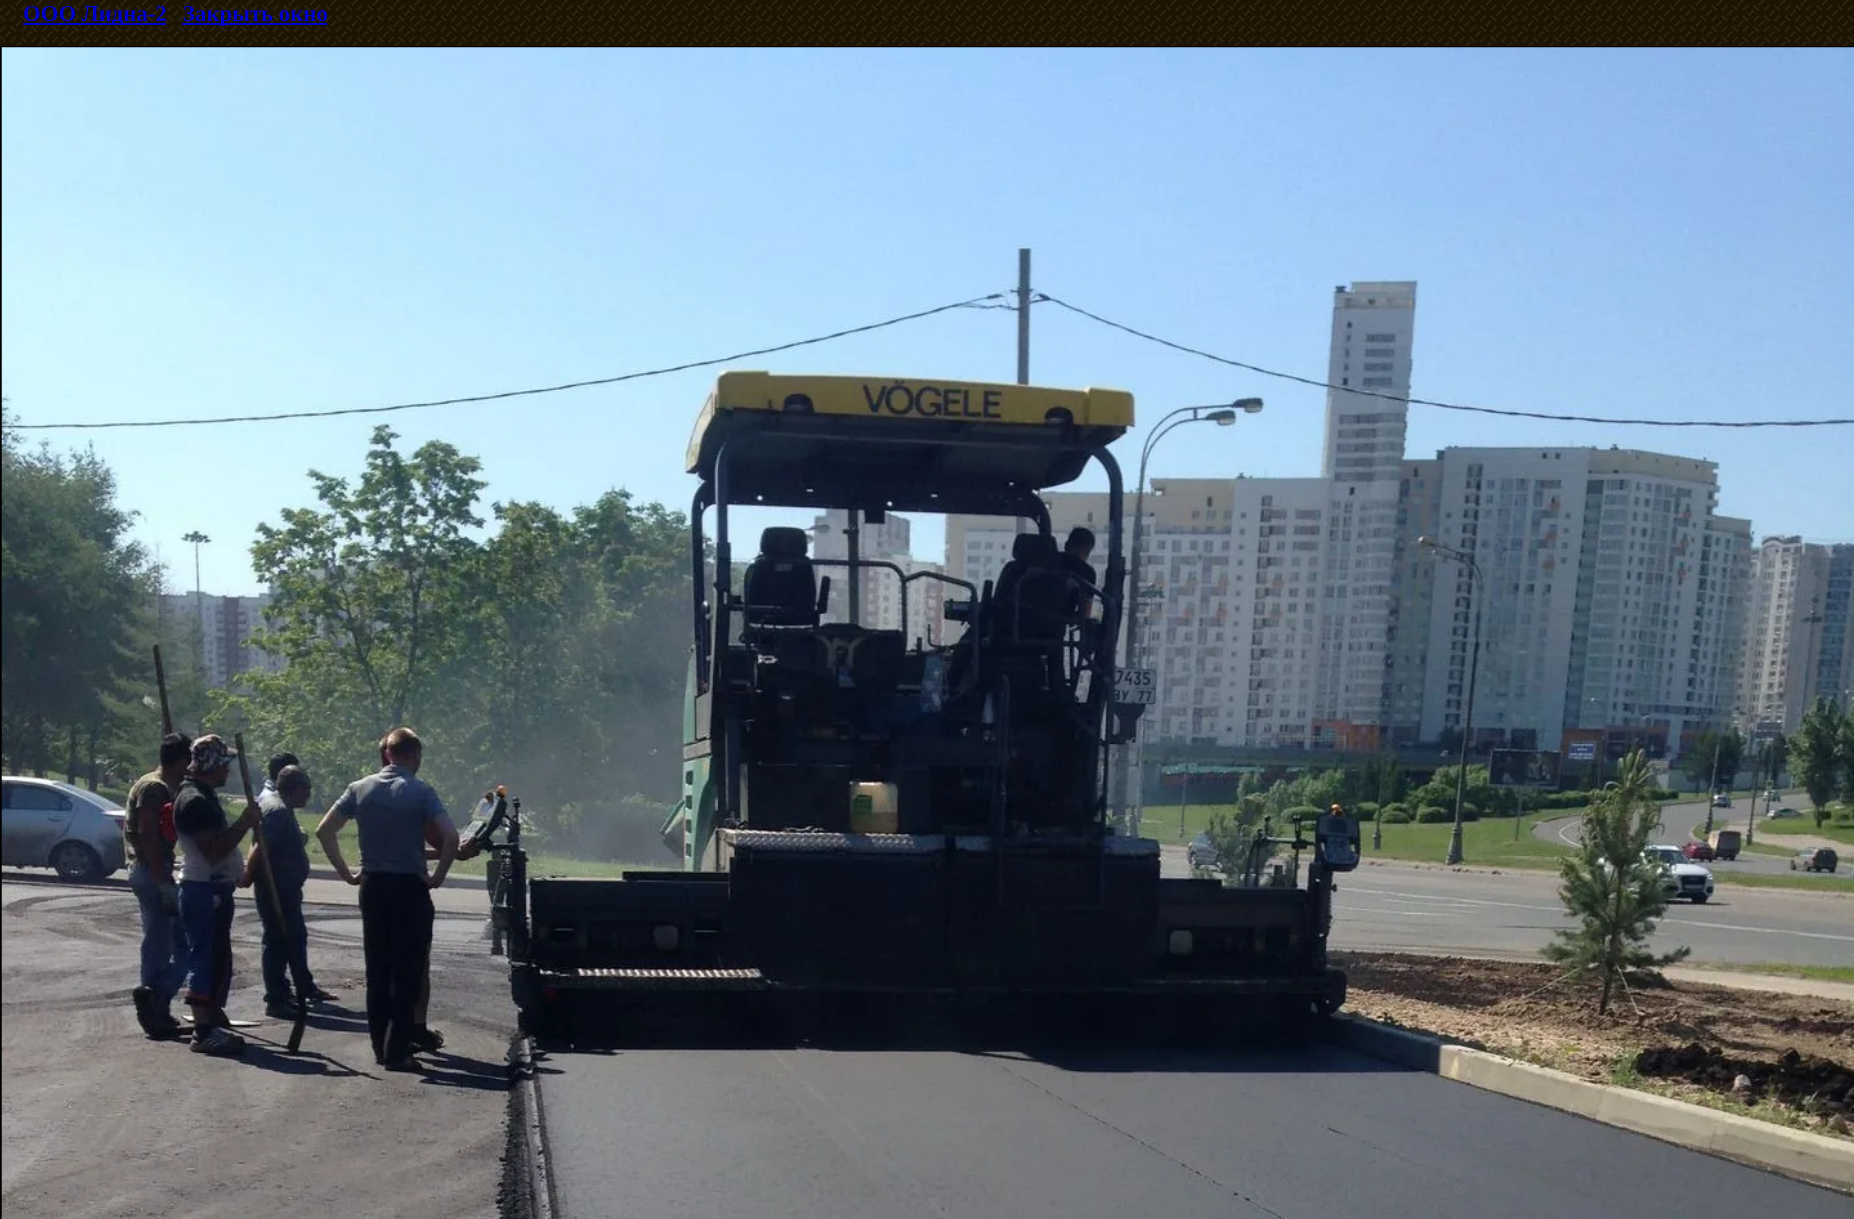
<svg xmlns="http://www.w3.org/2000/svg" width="1854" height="1219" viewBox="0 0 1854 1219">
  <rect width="100%" height="100%" fill="#fff"/>
  <image x="0" y="0" width="1854" height="46" href="img/1.png"/>
  <path d="M23 23h143v2H23z" fill="#00c"/>
  <path d="M182 23h145v2H182z" fill="#00c"/>
  <path d="M1 47h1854v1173H1z" fill="none" stroke="#000" stroke-width="2"/>
  <image x="1" y="47" width="1853" height="1172" href="img/2.png"/>
  <g font-family="Liberation Serif" font-size="22.75" font-weight="bold" fill="#00c">
    <text x="23" y="21">ООО Лидна-2</text>
    <text x="183" y="21">Закрыть окно</text>
  </g>
</svg>
